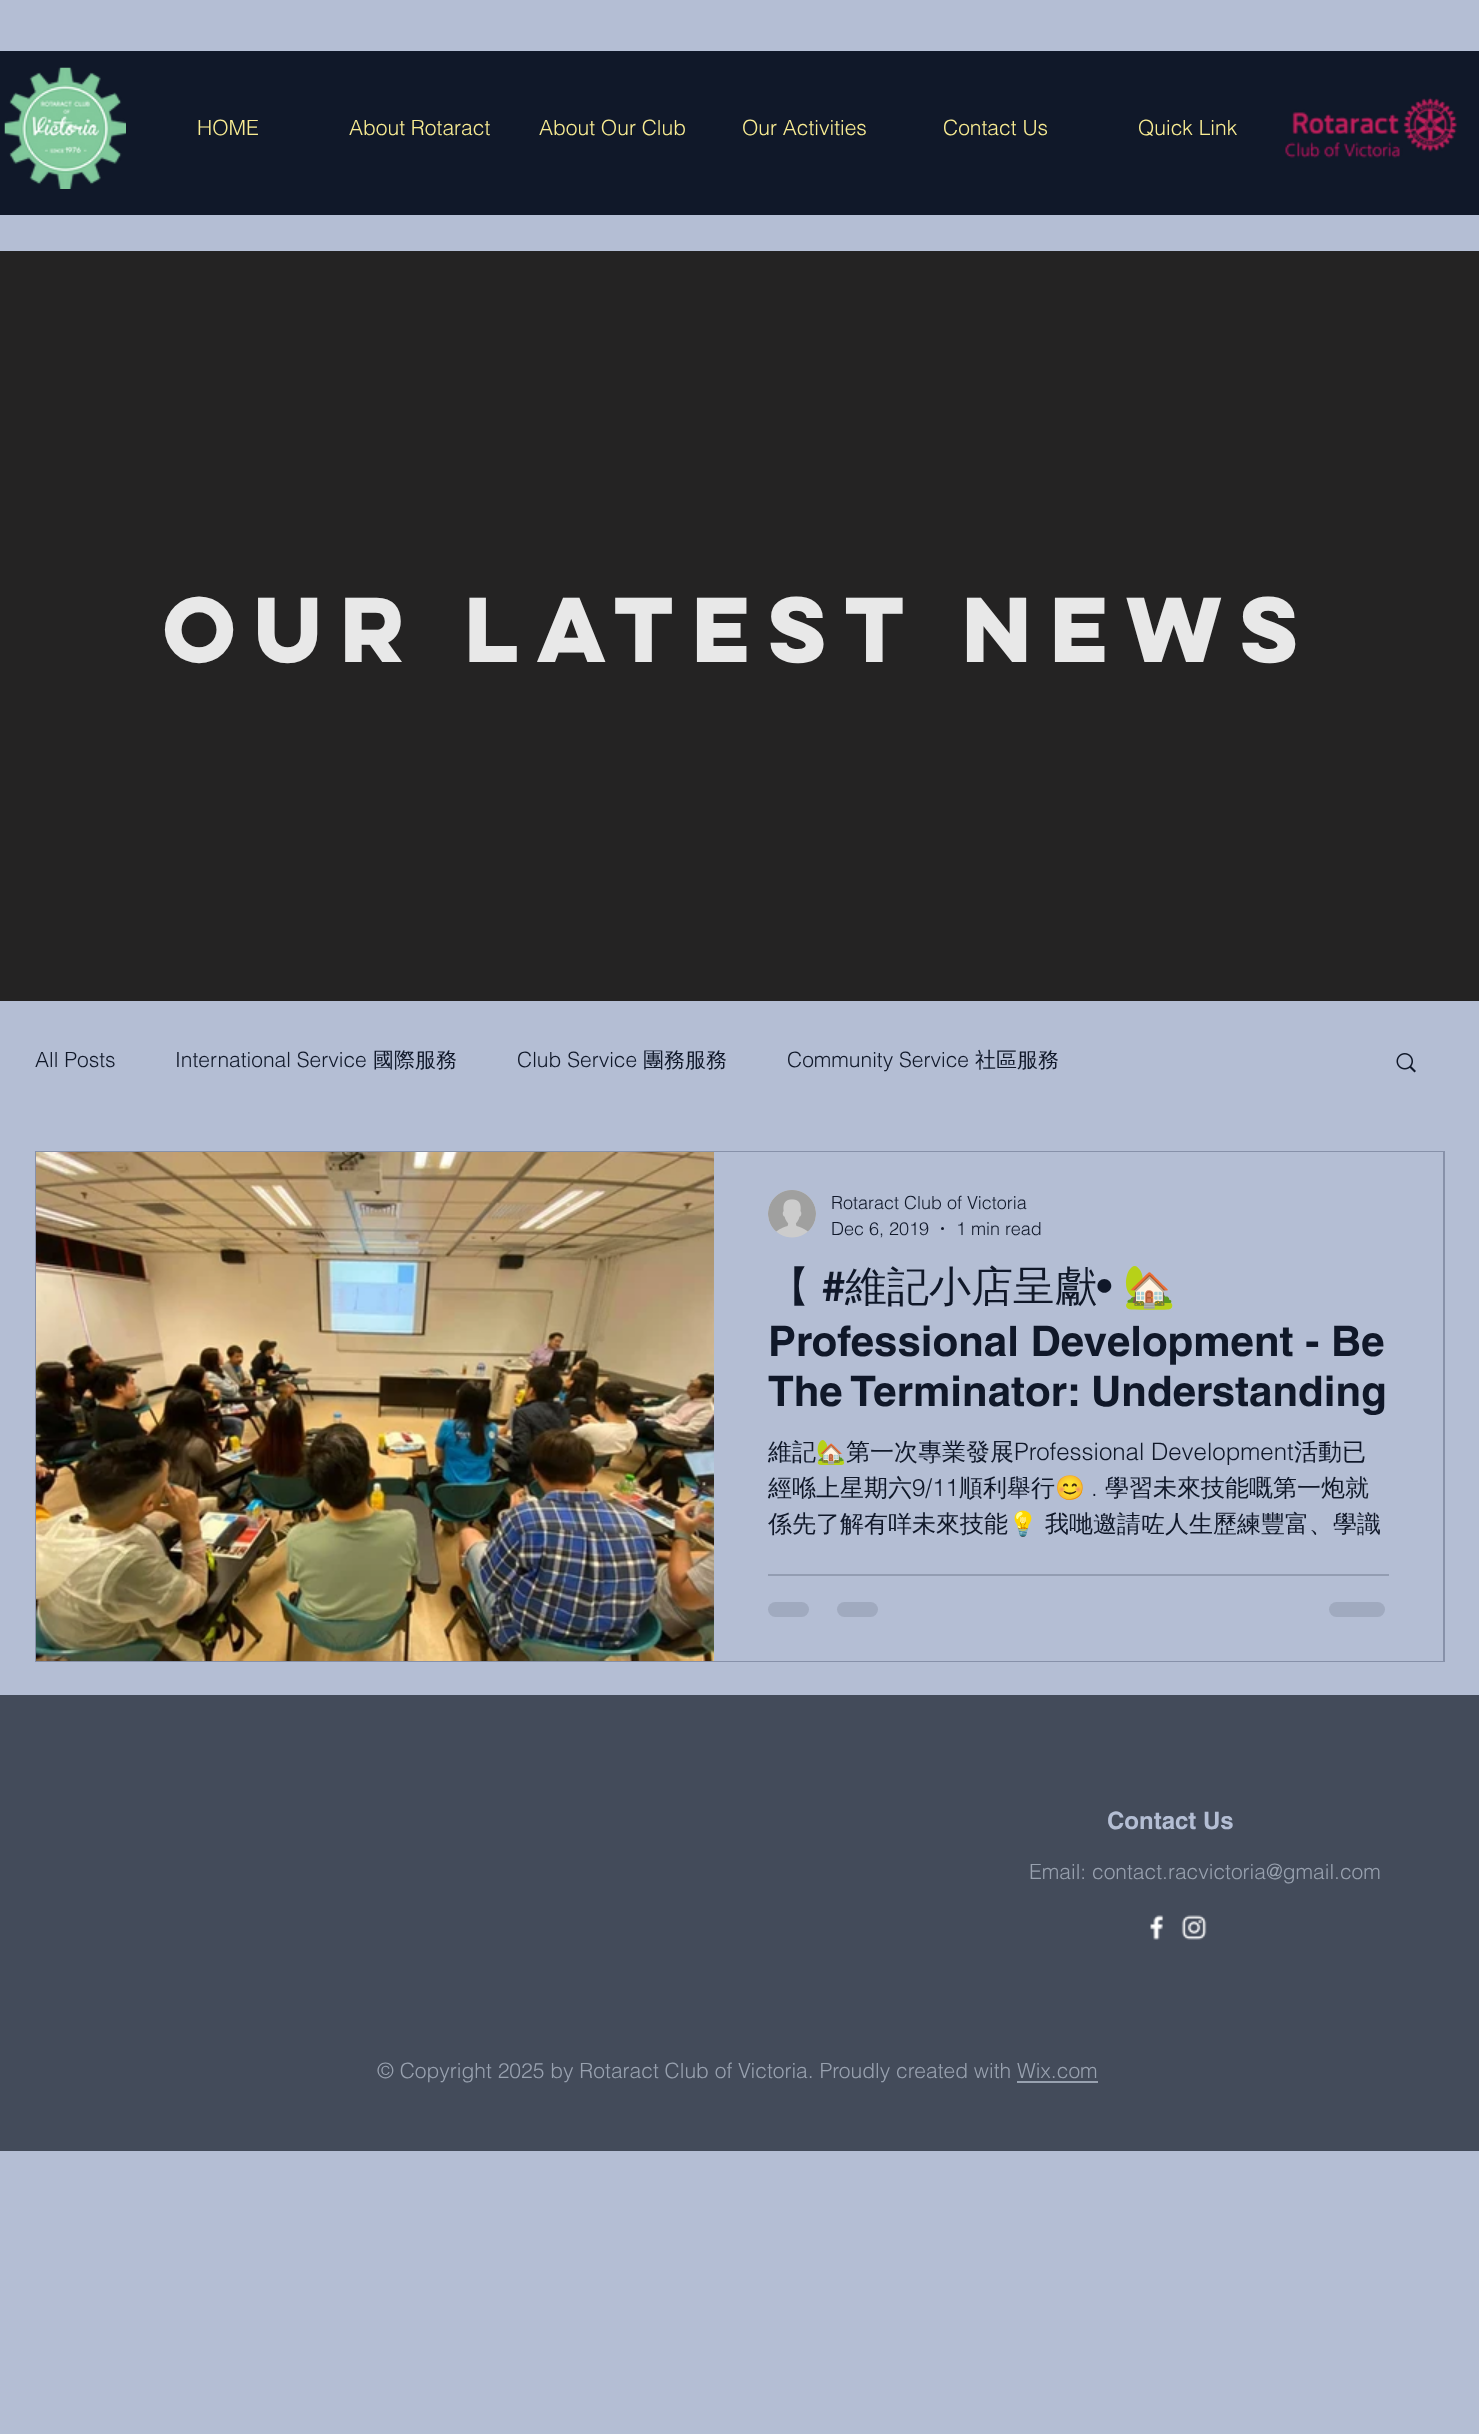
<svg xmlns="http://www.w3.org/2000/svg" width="1479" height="2434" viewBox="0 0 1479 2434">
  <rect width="100%" height="100%" fill="#b4bed4"/>
  <path d="M0 51h1479v164H0z" fill="#101829"/>
  <image x="4" y="67" width="122" height="122" href="img/1.png"/>
  <image x="1285" y="97" width="172" height="61" href="img/2.png"/>
  <path d="M0 251h1479v750H0z" fill="#242323"/>
  <image x="1396" y="1053" width="20" height="20" href="img/3.png"/>
  <path d="M36 1152h1408v509H36z" fill="none" stroke="#8791a9" stroke-width="2"/>
  <image x="36" y="1152" width="678" height="509" href="img/4.png"/>
  <path d="M714 1152h729v509H714z" fill="#b4bed4"/>
  <image x="768" y="1190" width="48" height="48" href="img/5.png"/>
  <circle cx="942.5" cy="1228.5" r="1.5" fill="#101829"/>
  <path d="M768 1574h621v2H768z" fill="#939db2"/>
  <rect x="768" y="1602" width="41" height="15" rx="7.5" fill="#a0aabf"/>
  <rect x="837" y="1602" width="41" height="15" rx="7.5" fill="#a0aabf"/>
  <rect x="1329" y="1602" width="56" height="15" rx="7.5" fill="#a0aabf"/>
  <path d="M0 1695h1479v456H0z" fill="#434b5a"/>
  <image x="1150" y="1915" width="14" height="25" href="img/6.png"/>
  <image x="1181" y="1915" width="26" height="25" href="img/7.png"/>
  <path d="M1017 2081h81v2H1017z" fill="#98a1af"/>
  <g font-family="helvetica" font-size="21" font-weight="300" fill="#faed93">
    <text x="197" y="135">HOME</text>
    <text x="349" y="135">About Rotaract</text>
    <text x="539" y="135">About Our Club</text>
    <text x="742" y="135">Our Activities</text>
    <text x="943" y="135">Contact Us</text>
    <text x="1138" y="135">Quick Link</text>
  </g>
  <text x="163" y="662" font-family="'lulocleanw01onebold'" font-size="82.5" font-weight="bold" fill="#e8e8e8">Our Latest News</text>
  <g font-family="helvetica" font-size="21" font-weight="300" fill="#101829">
    <text x="35" y="1067">All Posts</text>
    <text x="175" y="1067">International Service</text>
  </g>
  <text x="373" y="1067" font-family="WenQuanYi Zen Hei" font-size="21" font-weight="500" fill="#101829">國際服務</text>
  <text x="517" y="1067" font-family="helvetica" font-size="21" font-weight="300" fill="#101829">Club Service</text>
  <text x="643" y="1067" font-family="WenQuanYi Zen Hei" font-size="21" font-weight="500" fill="#101829">團務服務</text>
  <text x="787" y="1067" font-family="helvetica" font-size="21" font-weight="300" fill="#101829">Community Service</text>
  <text x="975" y="1067" font-family="WenQuanYi Zen Hei" font-size="21" font-weight="500" fill="#101829">社區服務</text>
  <g font-family="helvetica" font-size="18" font-weight="300" fill="#101829">
    <text x="831" y="1209">Rotaract Club of Victoria</text>
    <text x="831" y="1235">Dec 6, 2019</text>
    <text x="956" y="1235">1 min read</text>
  </g>
  <text x="768" y="1301" font-family="WenQuanYi Zen Hei" font-size="42" font-weight="500" fill="#101829">【</text>
  <text x="822" y="1301" font-family="helvetica" font-size="42" font-weight="bold" fill="#101829">#</text>
  <text x="845" y="1301" font-family="WenQuanYi Zen Hei" font-size="42" font-weight="500" fill="#101829">維記小店呈獻</text>
  <text x="1097" y="1301" font-family="helvetica" font-size="42" font-weight="bold" fill="#101829">•</text>
  <text x="1123" y="1301" font-family="Noto Color Emoji" font-size="42" fill="#101829">🏡</text>
  <g font-family="helvetica" font-size="42" font-weight="bold" fill="#101829">
    <text x="768" y="1356">Professional Development - Be</text>
    <text x="768" y="1406">The Terminator: Understanding</text>
  </g>
  <text x="768" y="1460" font-family="WenQuanYi Zen Hei" font-size="24" font-weight="500" fill="#101829">維記</text>
  <text x="816" y="1460" font-family="Noto Color Emoji" font-size="24" fill="#101829">🏡</text>
  <text x="846" y="1460" font-family="WenQuanYi Zen Hei" font-size="24" font-weight="500" fill="#101829">第一次專業發展</text>
  <text x="1014" y="1460" font-family="helvetica" font-size="24" font-weight="300" fill="#101829">Professional Development</text>
  <g font-family="WenQuanYi Zen Hei" font-size="24" font-weight="500" fill="#101829">
    <text x="1294" y="1460">活動已</text>
    <text x="768" y="1496">經喺上星期六</text>
  </g>
  <text x="912" y="1496" font-family="helvetica" font-size="24" font-weight="300" fill="#101829">9/11</text>
  <text x="959" y="1496" font-family="WenQuanYi Zen Hei" font-size="24" font-weight="500" fill="#101829">順利舉行</text>
  <text x="1055" y="1496" font-family="Noto Color Emoji" font-size="24" fill="#101829">😊</text>
  <text x="1091" y="1496" font-family="helvetica" font-size="24" font-weight="300" fill="#101829">.</text>
  <g font-family="WenQuanYi Zen Hei" font-size="24" font-weight="500" fill="#101829">
    <text x="1105" y="1496">學習未來技能嘅第一炮就</text>
    <text x="768" y="1532">係先了解有咩未來技能</text>
  </g>
  <text x="1008" y="1532" font-family="Noto Color Emoji" font-size="24" fill="#101829">💡</text>
  <text x="1045" y="1532" font-family="WenQuanYi Zen Hei" font-size="24" font-weight="500" fill="#101829">我哋邀請咗人生歷練豐富、學識</text>
  <text x="1107" y="1829" font-family="helvetica" font-size="24" font-weight="bold" fill="#b4bed4">Contact Us</text>
  <g font-family="helvetica" font-size="21" font-weight="300" fill="#98a1af">
    <text x="1029" y="1879">Email: contact.racvictoria@gmail.com</text>
    <text x="377" y="2078">© Copyright 2025 by Rotaract Club of Victoria. Proudly created with Wix.com</text>
  </g>
</svg>
